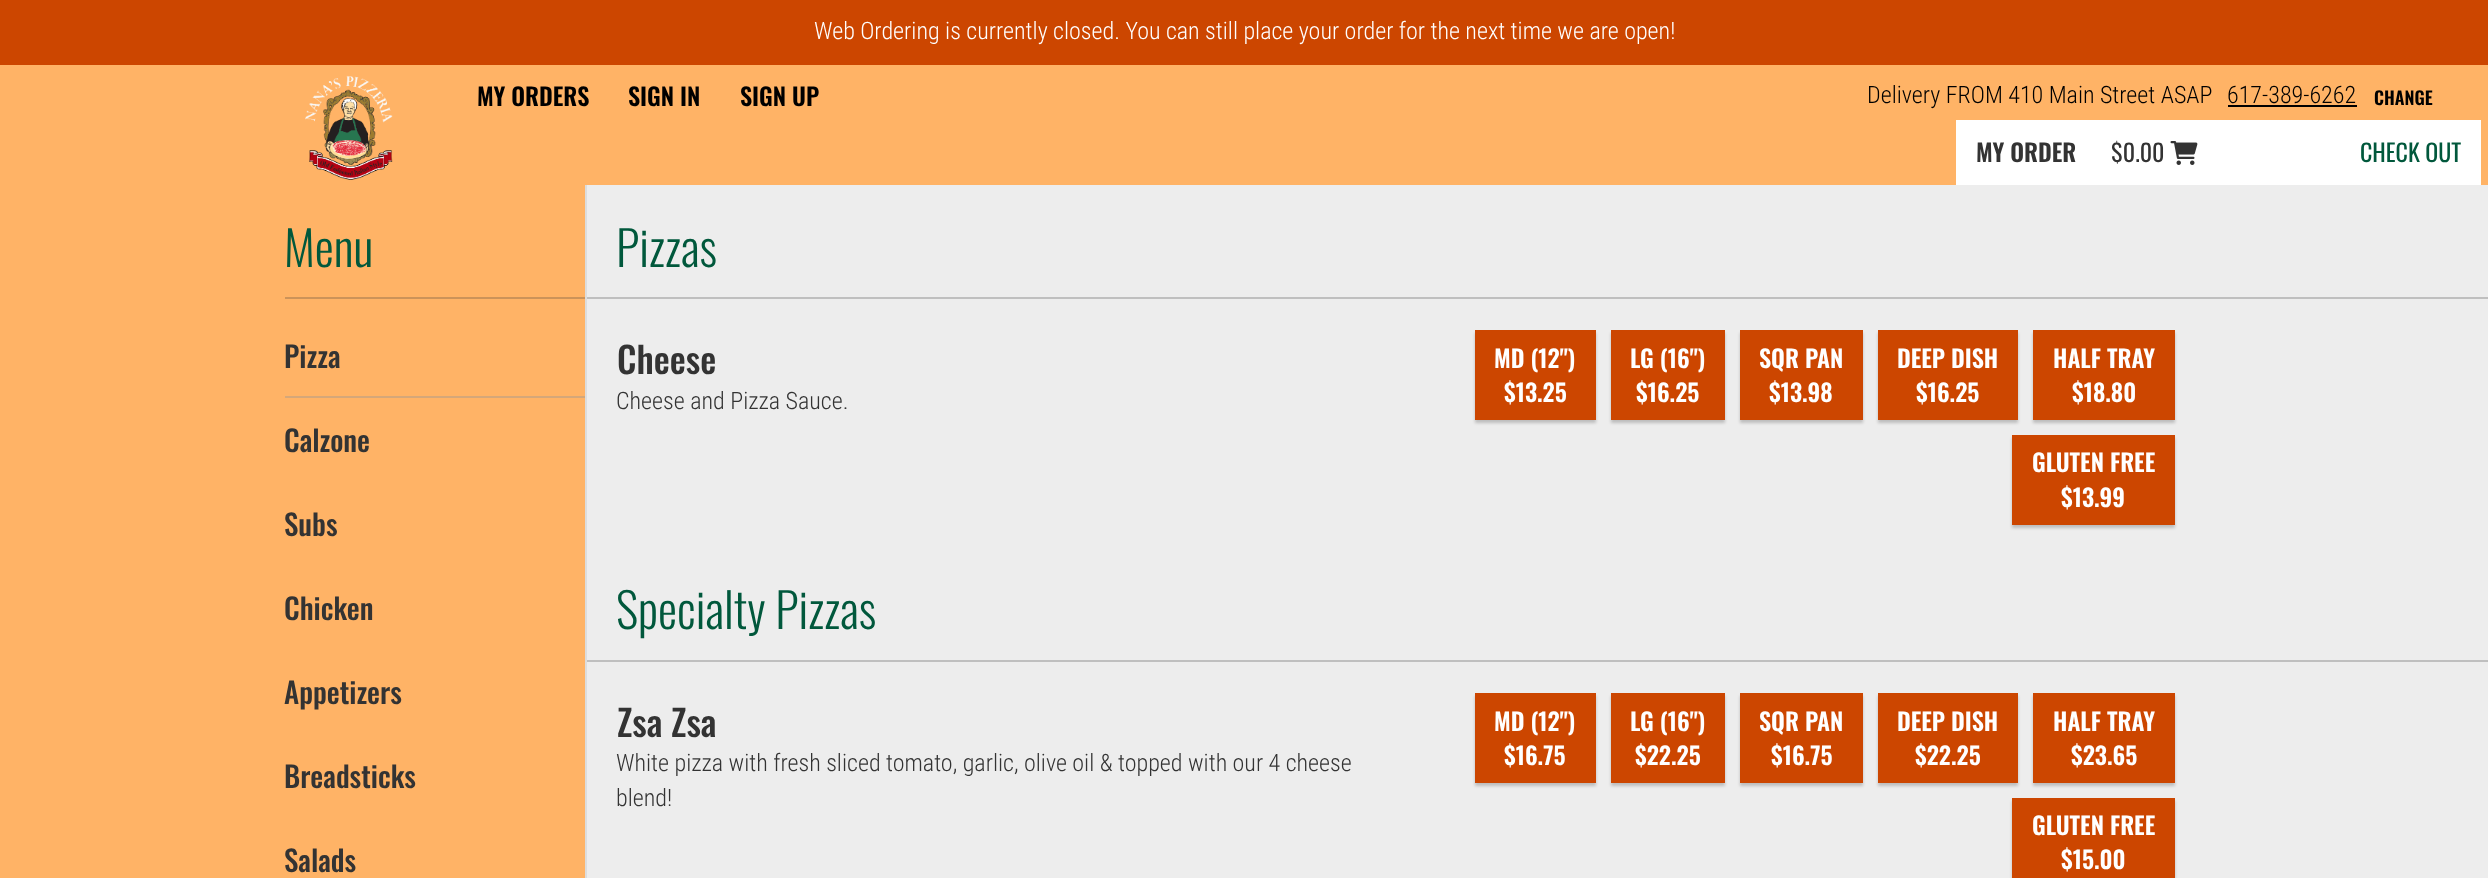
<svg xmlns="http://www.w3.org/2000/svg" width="2488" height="878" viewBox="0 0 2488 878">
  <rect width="100%" height="100%" fill="#ffb366"/>
  <path d="M0 0h2488v65H0z" fill="#cc4600"/>
  <image x="305" y="75" width="88" height="105" href="img/1.png"/>
  <path d="M2228 105h129v2H2228z" fill="#000"/>
  <path d="M1956 120h525v65H1956z" fill="#fff"/>
  <image x="2170" y="141" width="28" height="24" href="img/2.png"/>
  <path d="M285 297h300v2H285z" fill="#cc9359"/>
  <path d="M285 396h300v2H285z" fill="#d5a779"/>
  <path d="M587 185h1901v693H587z" fill="#ededed"/>
  <path d="M585 185h2v693H585z" fill="#ddd"/>
  <path d="M587 297h1901v2H587z" fill="#bfbfbf"/>
  <path d="M1475 333h121v90H1475z" fill="#00000033" filter="blur(1.5px)"/>
  <path d="M1475 330h121v90H1475z" fill="#cc4600"/>
  <path d="M1611 333h114v90H1611z" fill="#00000033" filter="blur(1.5px)"/>
  <path d="M1611 330h114v90H1611z" fill="#cc4600"/>
  <path d="M1740 333h123v90H1740z" fill="#00000033" filter="blur(1.5px)"/>
  <path d="M1740 330h123v90H1740z" fill="#cc4600"/>
  <path d="M1878 333h140v90H1878z" fill="#00000033" filter="blur(1.5px)"/>
  <path d="M1878 330h140v90H1878z" fill="#cc4600"/>
  <path d="M2033 333h142v90H2033z" fill="#00000033" filter="blur(1.5px)"/>
  <path d="M2033 330h142v90H2033z" fill="#cc4600"/>
  <path d="M2012 438h163v90H2012z" fill="#00000033" filter="blur(1.5px)"/>
  <path d="M2012 435h163v90H2012z" fill="#cc4600"/>
  <path d="M587 660h1901v2H587z" fill="#bfbfbf"/>
  <path d="M1475 696h121v90H1475z" fill="#00000033" filter="blur(1.5px)"/>
  <path d="M1475 693h121v90H1475z" fill="#cc4600"/>
  <path d="M1611 696h114v90H1611z" fill="#00000033" filter="blur(1.5px)"/>
  <path d="M1611 693h114v90H1611z" fill="#cc4600"/>
  <path d="M1740 696h123v90H1740z" fill="#00000033" filter="blur(1.5px)"/>
  <path d="M1740 693h123v90H1740z" fill="#cc4600"/>
  <path d="M1878 696h140v90H1878z" fill="#00000033" filter="blur(1.5px)"/>
  <path d="M1878 693h140v90H1878z" fill="#cc4600"/>
  <path d="M2033 696h142v90H2033z" fill="#00000033" filter="blur(1.5px)"/>
  <path d="M2033 693h142v90H2033z" fill="#cc4600"/>
  <path d="M2012 801h163v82H2012z" fill="#00000033" filter="blur(1.5px)"/>
  <path d="M2012 798h163v80H2012z" fill="#cc4600"/>
  <text x="814" y="39" font-family="Roboto Condensed" font-size="24" font-weight="300" fill="#fff">Web Ordering is currently closed. You can still place your order for the next time we are open!</text>
  <g font-family="Oswald" font-size="24" font-weight="600" fill="#000">
    <text x="477" y="106">MY ORDERS</text>
    <text x="628" y="106">SIGN IN</text>
    <text x="740" y="106">SIGN UP</text>
  </g>
  <g font-family="Roboto Condensed" font-size="24" font-weight="300" fill="#000">
    <text x="1867" y="103">Delivery FROM 410 Main Street ASAP</text>
    <text x="2227" y="103">617-389-6262</text>
  </g>
  <text x="2374" y="105" font-family="Oswald" font-size="18" font-weight="600" fill="#000">CHANGE</text>
  <text x="1976" y="162" font-family="Oswald" font-size="24" font-weight="600" fill="#333">MY ORDER</text>
  <text x="2111" y="162" font-family="Oswald" font-size="24" fill="#333">$0.00</text>
  <text x="2360" y="162" font-family="Oswald" font-size="24" fill="#01583c">CHECK OUT</text>
  <text x="284" y="267" font-family="Oswald" font-size="48" font-weight="300" fill="#01583c">Menu</text>
  <g font-family="Oswald" font-size="29" font-weight="500" fill="#333">
    <text x="284" y="368">Pizza</text>
    <text x="284" y="452">Calzone</text>
    <text x="284" y="536">Subs</text>
    <text x="284" y="620">Chicken</text>
    <text x="284" y="704">Appetizers</text>
    <text x="284" y="788">Breadsticks</text>
    <text x="284" y="872">Salads</text>
  </g>
  <text x="616" y="267" font-family="Oswald" font-size="48" font-weight="300" fill="#01583c">Pizzas</text>
  <text x="617" y="374" font-family="Oswald" font-size="36" font-weight="500" fill="#333">Cheese</text>
  <text x="616" y="409" font-family="Roboto Condensed" font-size="24" font-weight="300" fill="#333">Cheese and Pizza Sauce.</text>
  <g font-family="Oswald" font-size="24" font-weight="600" fill="#fff">
    <text x="1494" y="368">MD (12")</text>
    <text x="1504" y="402">$13.25</text>
    <text x="1630" y="368">LG (16")</text>
    <text x="1636" y="402">$16.25</text>
    <text x="1759" y="368">SQR PAN</text>
    <text x="1769" y="402">$13.98</text>
    <text x="1897" y="368">DEEP DISH</text>
    <text x="1916" y="402">$16.25</text>
    <text x="2053" y="368">HALF TRAY</text>
    <text x="2072" y="402">$18.80</text>
    <text x="2032" y="472">GLUTEN FREE</text>
    <text x="2061" y="507">$13.99</text>
  </g>
  <text x="616" y="629" font-family="Oswald" font-size="48" font-weight="300" fill="#01583c">Specialty Pizzas</text>
  <text x="617" y="737" font-family="Oswald" font-size="36" font-weight="500" fill="#333">Zsa Zsa</text>
  <g font-family="Roboto Condensed" font-size="24" font-weight="300" fill="#333">
    <text x="616" y="771">White pizza with fresh sliced tomato, garlic, olive oil &amp; topped with our 4 cheese</text>
    <text x="616" y="806">blend!</text>
  </g>
  <g font-family="Oswald" font-size="24" font-weight="600" fill="#fff">
    <text x="1494" y="731">MD (12")</text>
    <text x="1504" y="765">$16.75</text>
    <text x="1630" y="731">LG (16")</text>
    <text x="1635" y="765">$22.25</text>
    <text x="1759" y="731">SQR PAN</text>
    <text x="1771" y="765">$16.75</text>
    <text x="1897" y="731">DEEP DISH</text>
    <text x="1915" y="765">$22.25</text>
    <text x="2053" y="731">HALF TRAY</text>
    <text x="2071" y="765">$23.65</text>
    <text x="2032" y="835">GLUTEN FREE</text>
    <text x="2061" y="869">$15.00</text>
  </g>
</svg>
